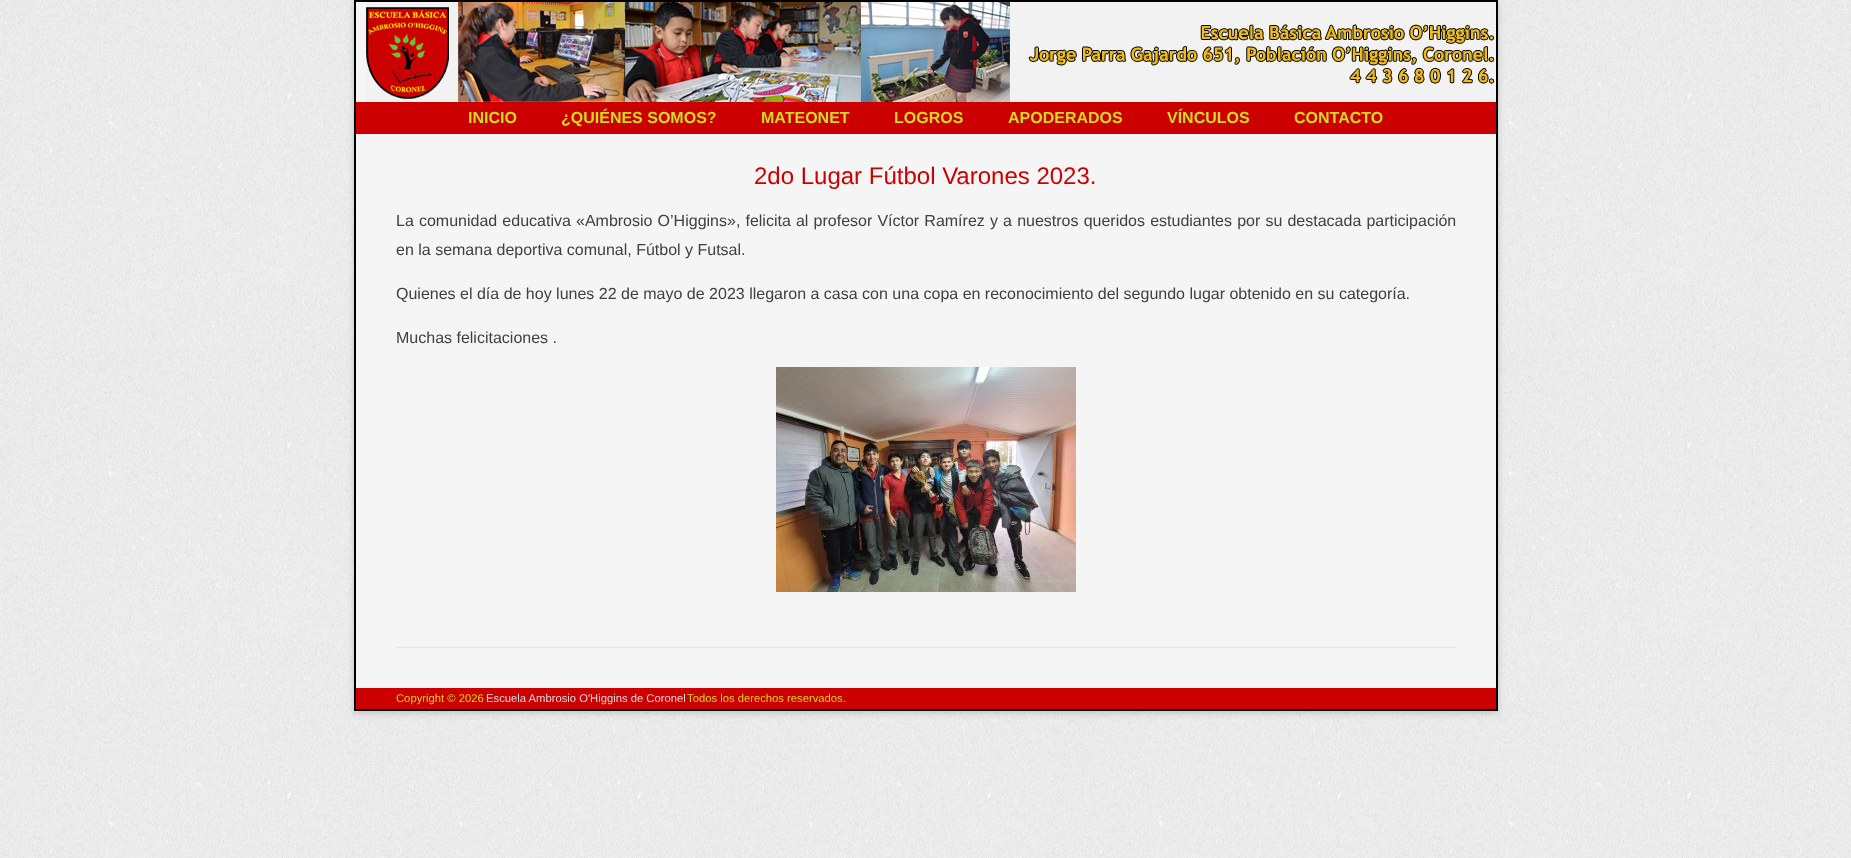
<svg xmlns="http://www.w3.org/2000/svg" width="1851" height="858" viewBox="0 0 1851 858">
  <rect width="100%" height="100%" fill="#fff"/>
  <image x="0" y="0" width="1851" height="858" href="img/1.png"/>
  <path d="M354 2h1144v711H354z" fill="#6464644d" filter="blur(3px)"/>
  <path d="M356 2h1140v686H356z" fill="#f5f5f5"/>
  <path d="M355 1h1142v709H355z" fill="none" stroke="#000" stroke-width="2"/>
  <image x="366" y="2" width="1129" height="100" href="img/2.png"/>
  <path d="M356 102h1140v32H356z" fill="#c00"/>
  <path d="M396 647h1060v1H396z" fill="#e6e6e6"/>
  <image x="776" y="367" width="300" height="225" href="img/3.png"/>
  <path d="M356 688h1140v21H356z" fill="#c00"/>
  <g font-family="Liberation Sans" font-size="16" font-weight="bold" fill="#d3da21">
    <text x="468" y="123">INICIO</text>
    <text x="561" y="123">¿QUIÉNES SOMOS?</text>
    <text x="761" y="123">MATEONET</text>
    <text x="894" y="123">LOGROS</text>
    <text x="1008" y="123">APODERADOS</text>
    <text x="1167" y="123">VÍNCULOS</text>
    <text x="1294" y="123">CONTACTO</text>
  </g>
  <text x="754" y="184" font-family="Liberation Sans" font-size="24" fill="#c00">2do Lugar Fútbol Varones 2023.</text>
  <g font-family="Liberation Sans" font-size="16" fill="#404040">
    <text x="396" y="226" word-spacing="0.7">La comunidad educativa «Ambrosio O’Higgins», felicita al profesor Víctor Ramírez y a nuestros queridos estudiantes por su destacada participación</text>
    <text x="396" y="255">en la semana deportiva comunal, Fútbol y Futsal.</text>
    <text x="396" y="299">Quienes el día de hoy lunes 22 de mayo de 2023 llegaron a casa con una copa en reconocimiento del segundo lugar obtenido en su categoría.</text>
    <text x="396" y="343">Muchas felicitaciones .</text>
  </g>
  <text x="396" y="702" font-family="Liberation Sans" font-size="11.25" fill="#d3da21">Copyright © 2026</text>
  <text x="486" y="702" font-family="Liberation Sans" font-size="11.25" fill="#ddd">Escuela Ambrosio O'Higgins de Coronel</text>
  <text x="687" y="702" font-family="Liberation Sans" font-size="11.25" fill="#d3da21">Todos los derechos reservados.</text>
</svg>
